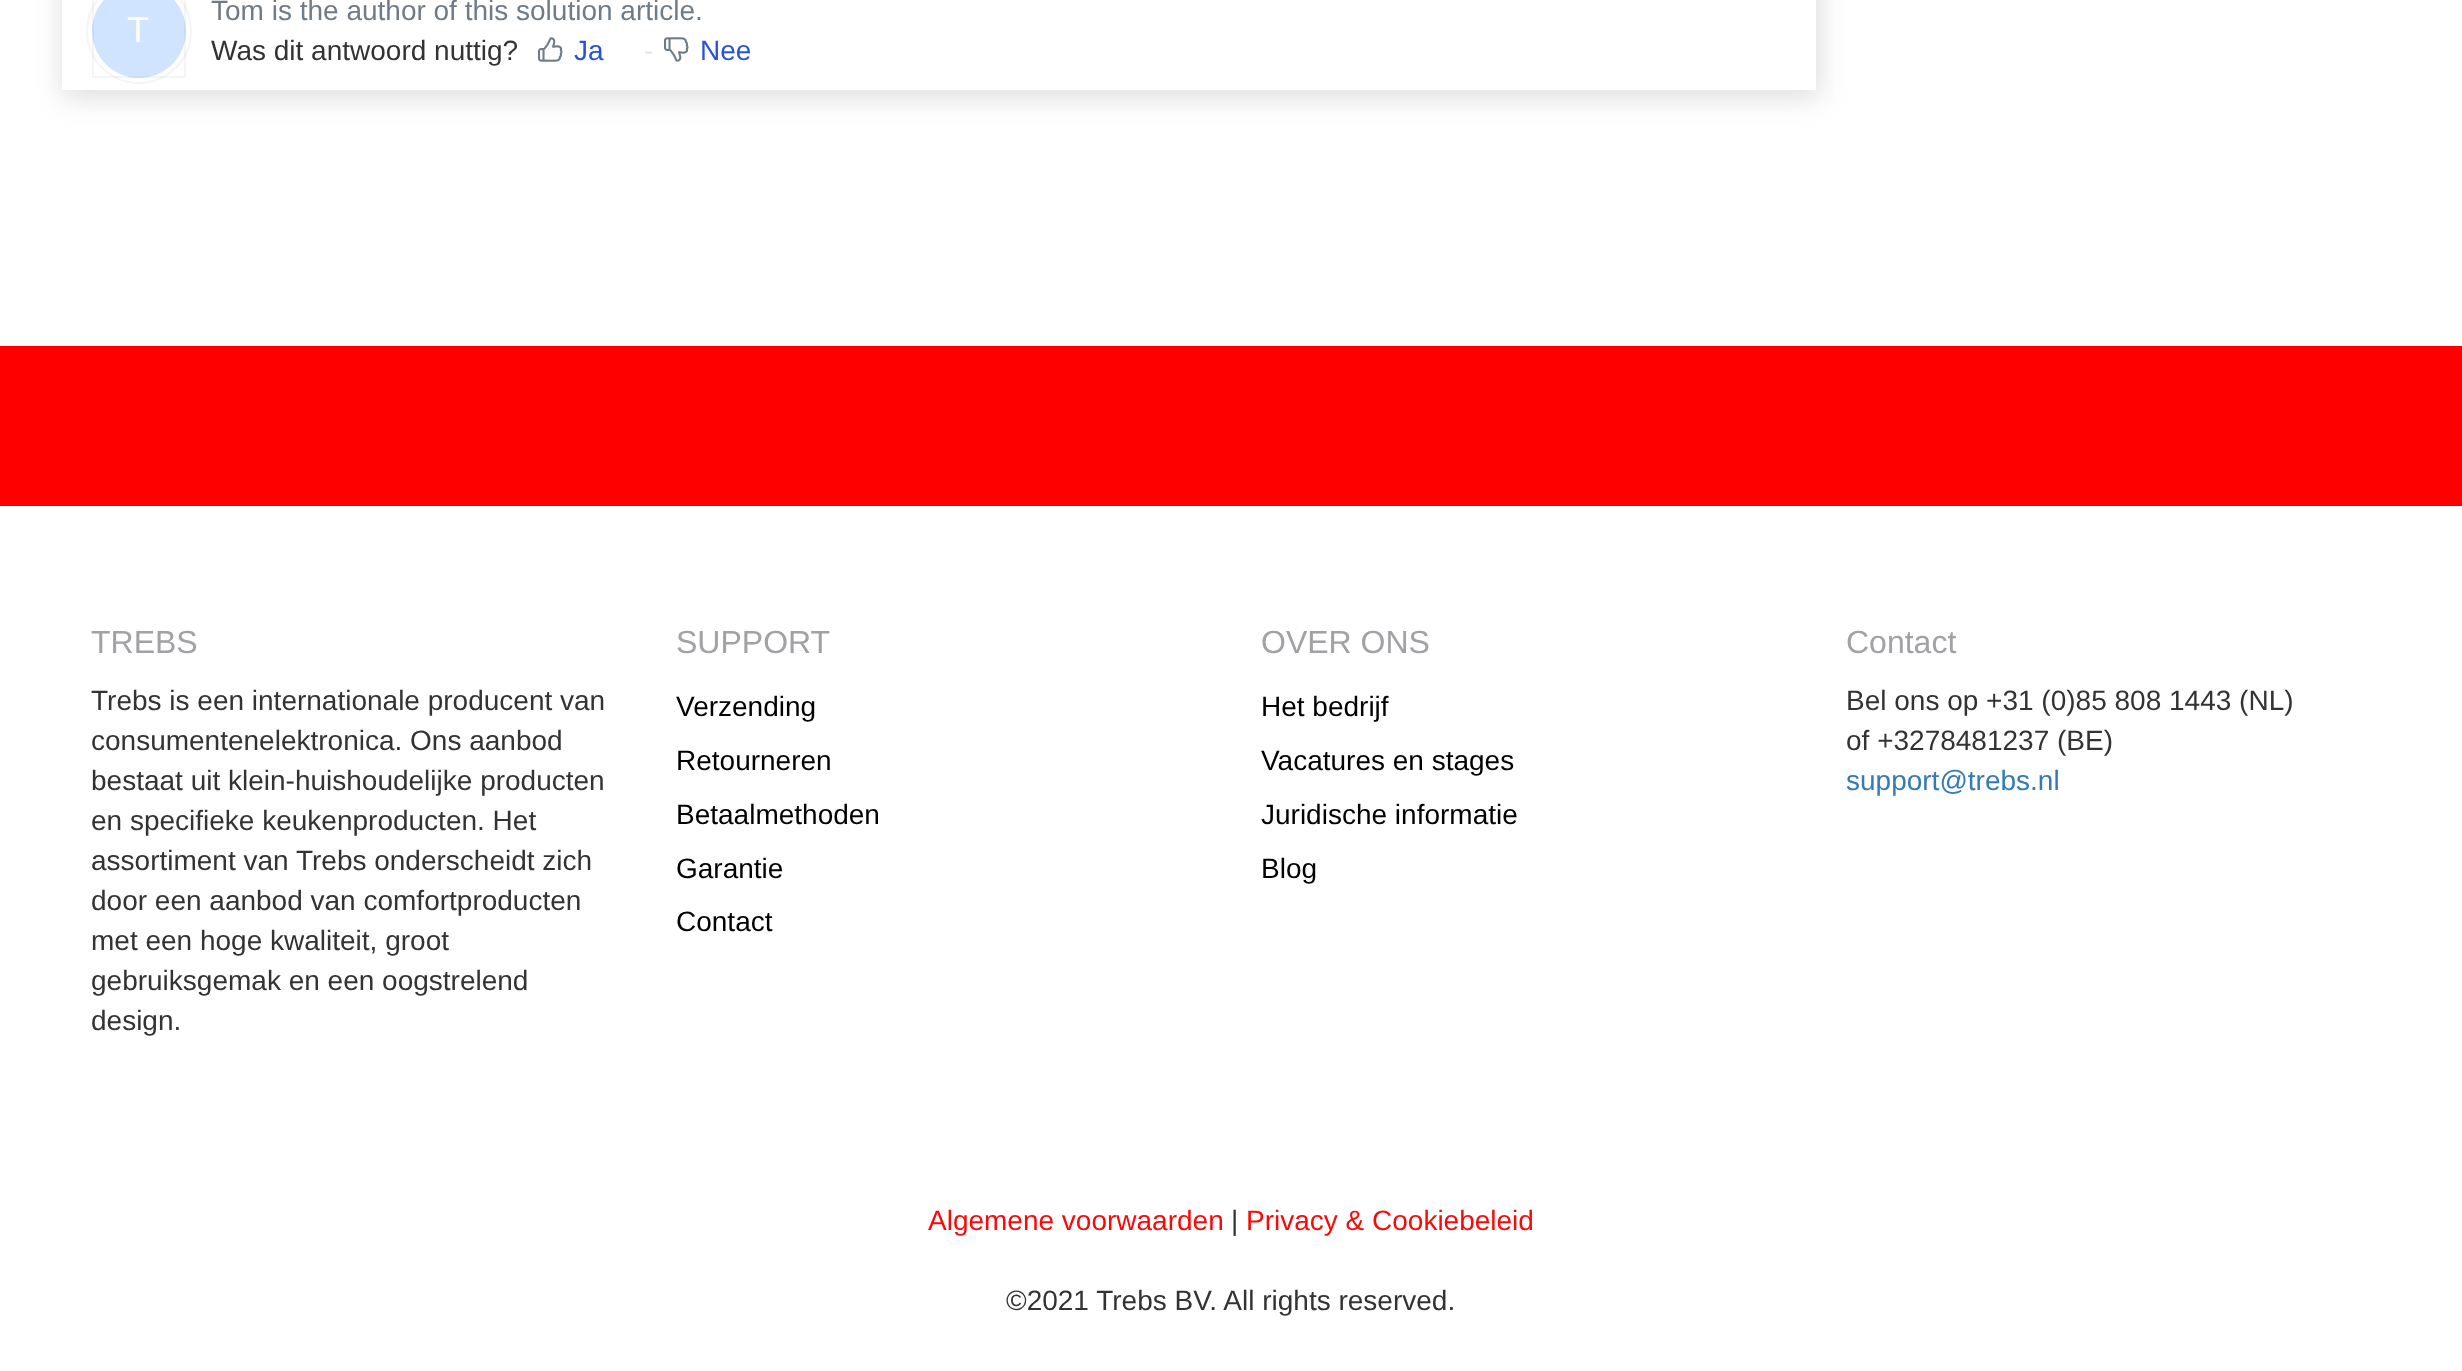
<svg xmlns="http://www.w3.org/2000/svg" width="2462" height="1371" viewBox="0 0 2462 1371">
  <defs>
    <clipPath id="clip1"><path d="M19 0H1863V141H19ZM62-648H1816V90H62Z" clip-rule="evenodd"/></clipPath>
  </defs>
  <rect width="100%" height="100%" fill="#fff"/>
  <g clip-path="url(#clip1)">
    <path d="M62 -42h1758v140H62z" fill="#dedede" filter="blur(14px)"/>
  </g>
  <circle cx="139" cy="31" r="52" fill="none" stroke="#f3f5f7" stroke-width="2"/>
  <circle cx="139" cy="31" r="47" fill="#d1e4ff"/>
  <path d="M93 -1h92v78H93z" fill="none" stroke="#0000000a" stroke-width="2"/>
  <image x="538" y="37" width="25" height="25" href="img/1.png"/>
  <image x="664" y="37" width="25" height="25" href="img/2.png"/>
  <path d="M0 346h2462v160H0z" fill="#f00"/>
  <text x="211" y="20" font-family="Liberation Sans" font-size="28" fill="#6f7c87">Tom is the author of this solution article.</text>
  <text x="127" y="42" font-family="Liberation Sans" font-size="36" fill="#fff">T</text>
  <text x="211" y="60" font-family="Liberation Sans" font-size="28" fill="#333">Was dit antwoord nuttig?</text>
  <text x="574" y="60" font-family="Liberation Sans" font-size="28" fill="#2753d7">Ja</text>
  <text x="644" y="60" font-family="Liberation Sans" font-size="28" fill="#e5e5e5">-</text>
  <text x="700" y="60" font-family="Liberation Sans" font-size="28" fill="#2753d7">Nee</text>
  <text x="91" y="653" font-family="Liberation Sans" font-size="32" fill="#a1a1a6">TREBS</text>
  <g font-family="Liberation Sans" font-size="28" fill="#333">
    <text x="91" y="710">Trebs is een internationale producent van</text>
    <text x="91" y="750">consumentenelektronica. Ons aanbod</text>
    <text x="91" y="790">bestaat uit klein-huishoudelijke producten</text>
    <text x="91" y="830">en specifieke keukenproducten. Het</text>
    <text x="91" y="870">assortiment van Trebs onderscheidt zich</text>
    <text x="91" y="910">door een aanbod van comfortproducten</text>
    <text x="91" y="950">met een hoge kwaliteit, groot</text>
    <text x="91" y="990">gebruiksgemak en een oogstrelend</text>
    <text x="91" y="1030">design.</text>
  </g>
  <text x="676" y="653" font-family="Liberation Sans" font-size="32" fill="#a1a1a6">SUPPORT</text>
  <g font-family="Liberation Sans" font-size="28" fill="#000">
    <text x="676" y="716">Verzending</text>
    <text x="676" y="770">Retourneren</text>
    <text x="676" y="824">Betaalmethoden</text>
    <text x="676" y="878">Garantie</text>
    <text x="676" y="931">Contact</text>
  </g>
  <text x="1261" y="653" font-family="Liberation Sans" font-size="32" fill="#a1a1a6">OVER ONS</text>
  <g font-family="Liberation Sans" font-size="28" fill="#000">
    <text x="1261" y="716">Het bedrijf</text>
    <text x="1261" y="770">Vacatures en stages</text>
    <text x="1261" y="824">Juridische informatie</text>
    <text x="1261" y="878">Blog</text>
  </g>
  <text x="1846" y="653" font-family="Liberation Sans" font-size="32" fill="#a1a1a6">Contact</text>
  <g font-family="Liberation Sans" font-size="28" fill="#333">
    <text x="1846" y="710">Bel ons op +31 (0)85 808 1443 (NL)</text>
    <text x="1846" y="750">of +3278481237 (BE)</text>
  </g>
  <text x="1846" y="790" font-family="Liberation Sans" font-size="28" fill="#337ab7">support@trebs.nl</text>
  <text x="928" y="1230" font-family="Liberation Sans" font-size="28" fill="#fd0808">Algemene voorwaarden</text>
  <text x="1231" y="1230" font-family="Liberation Sans" font-size="28" fill="#333">|</text>
  <text x="1246" y="1230" font-family="Liberation Sans" font-size="28" fill="#fd0808">Privacy &amp; Cookiebeleid</text>
  <text x="1006" y="1310" font-family="Liberation Sans" font-size="28" fill="#333">©2021 Trebs BV. All rights reserved.</text>
</svg>
